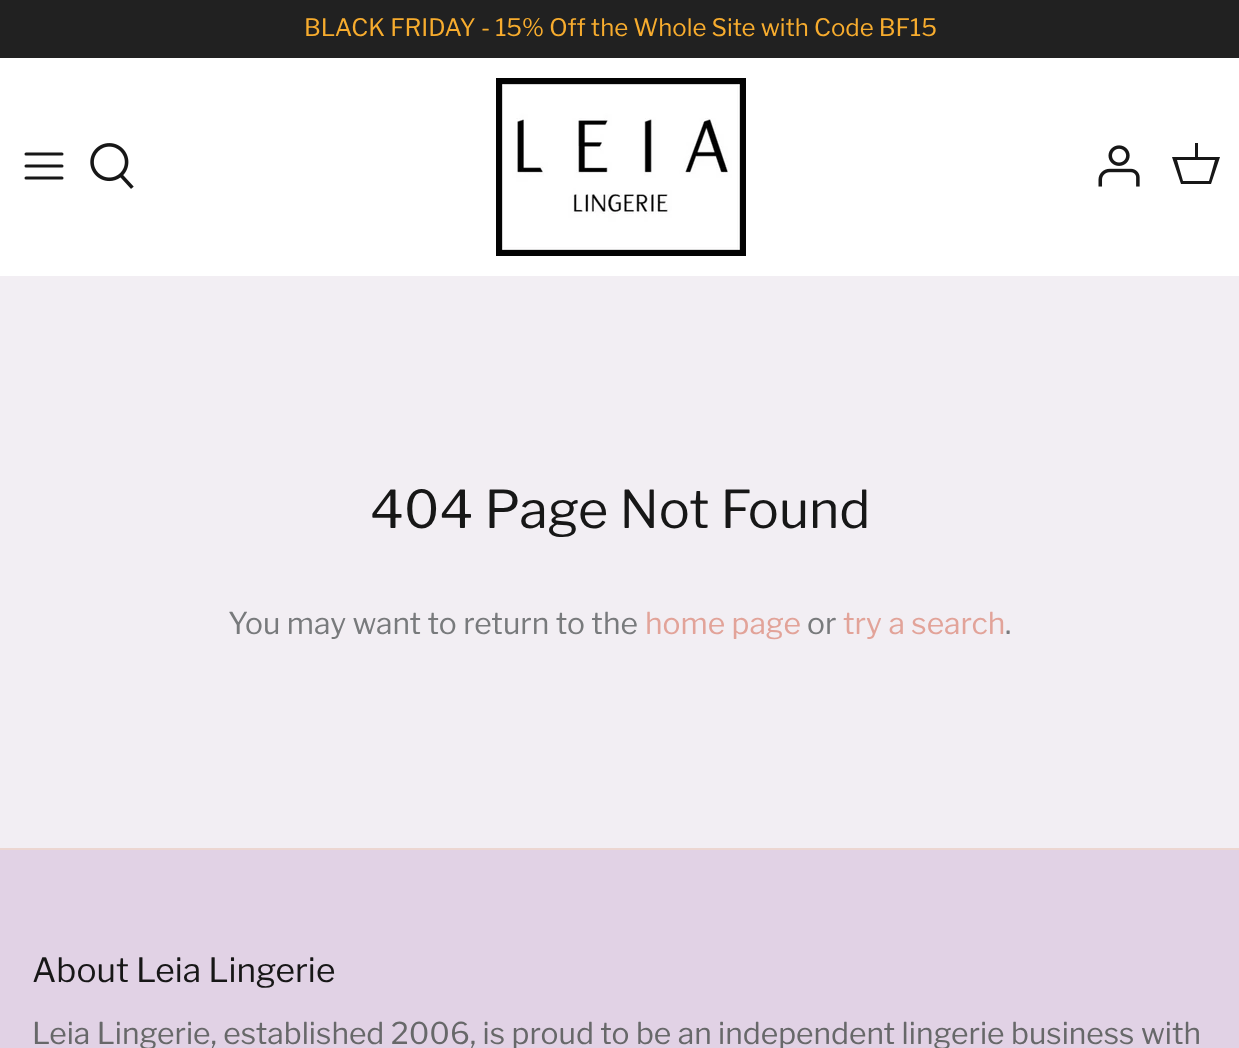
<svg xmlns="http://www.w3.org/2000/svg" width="1239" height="1048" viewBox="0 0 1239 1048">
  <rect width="100%" height="100%" fill="#f2eef3"/>
  <path d="M0 0h1239v58H0z" fill="#212121"/>
  <path d="M0 58h1239v218H0z" fill="#fff"/>
  <path d="M26 166H62M26 154H62M26 178H62" fill="none" stroke="#171717" stroke-width="3" stroke-linecap="round" stroke-linejoin="round"/>
  <image x="90" y="143" width="44" height="46" href="img/1.png"/>
  <image x="496" y="78" width="250" height="178" href="img/2.png"/>
  <image x="1098" y="145" width="42" height="42" href="img/3.png"/>
  <path d="M1195 157V143H1198V157H1220L1211 184H1181L1172 157ZM1177 160L1183 181H1209L1215 160Z" fill="#171717"/>
  <path d="M0 850h1239v198H0z" fill="#e1d2e5"/>
  <path d="M0 848h1239v2H0z" fill="#ecd6d1"/>
  <text x="304" y="36" font-family="Libre Franklin" font-size="24" fill="#f7ac2e">BLACK FRIDAY - 15% Off the Whole Site with Code BF15</text>
  <text x="370" y="528" font-family="Libre Franklin" font-size="52" fill="#171717">404 Page Not Found</text>
  <text x="228" y="634" font-family="Libre Franklin" font-size="30" fill="#787a7c">You may want to return to the</text>
  <text x="645" y="634" font-family="Libre Franklin" font-size="30" fill="#e2a399">home page</text>
  <text x="807" y="634" font-family="Libre Franklin" font-size="30" fill="#787a7c">or</text>
  <text x="843" y="634" font-family="Libre Franklin" font-size="30" fill="#e2a399">try a search</text>
  <text x="1005" y="634" font-family="Libre Franklin" font-size="30" fill="#787a7c">.</text>
  <text x="32" y="982" font-family="Libre Franklin" font-size="33.5" fill="#171717">About Leia Lingerie</text>
  <text x="32" y="1044" font-family="Libre Franklin" font-size="30" fill="#676869">Leia Lingerie, established 2006, is proud to be an independent lingerie business with</text>
</svg>
